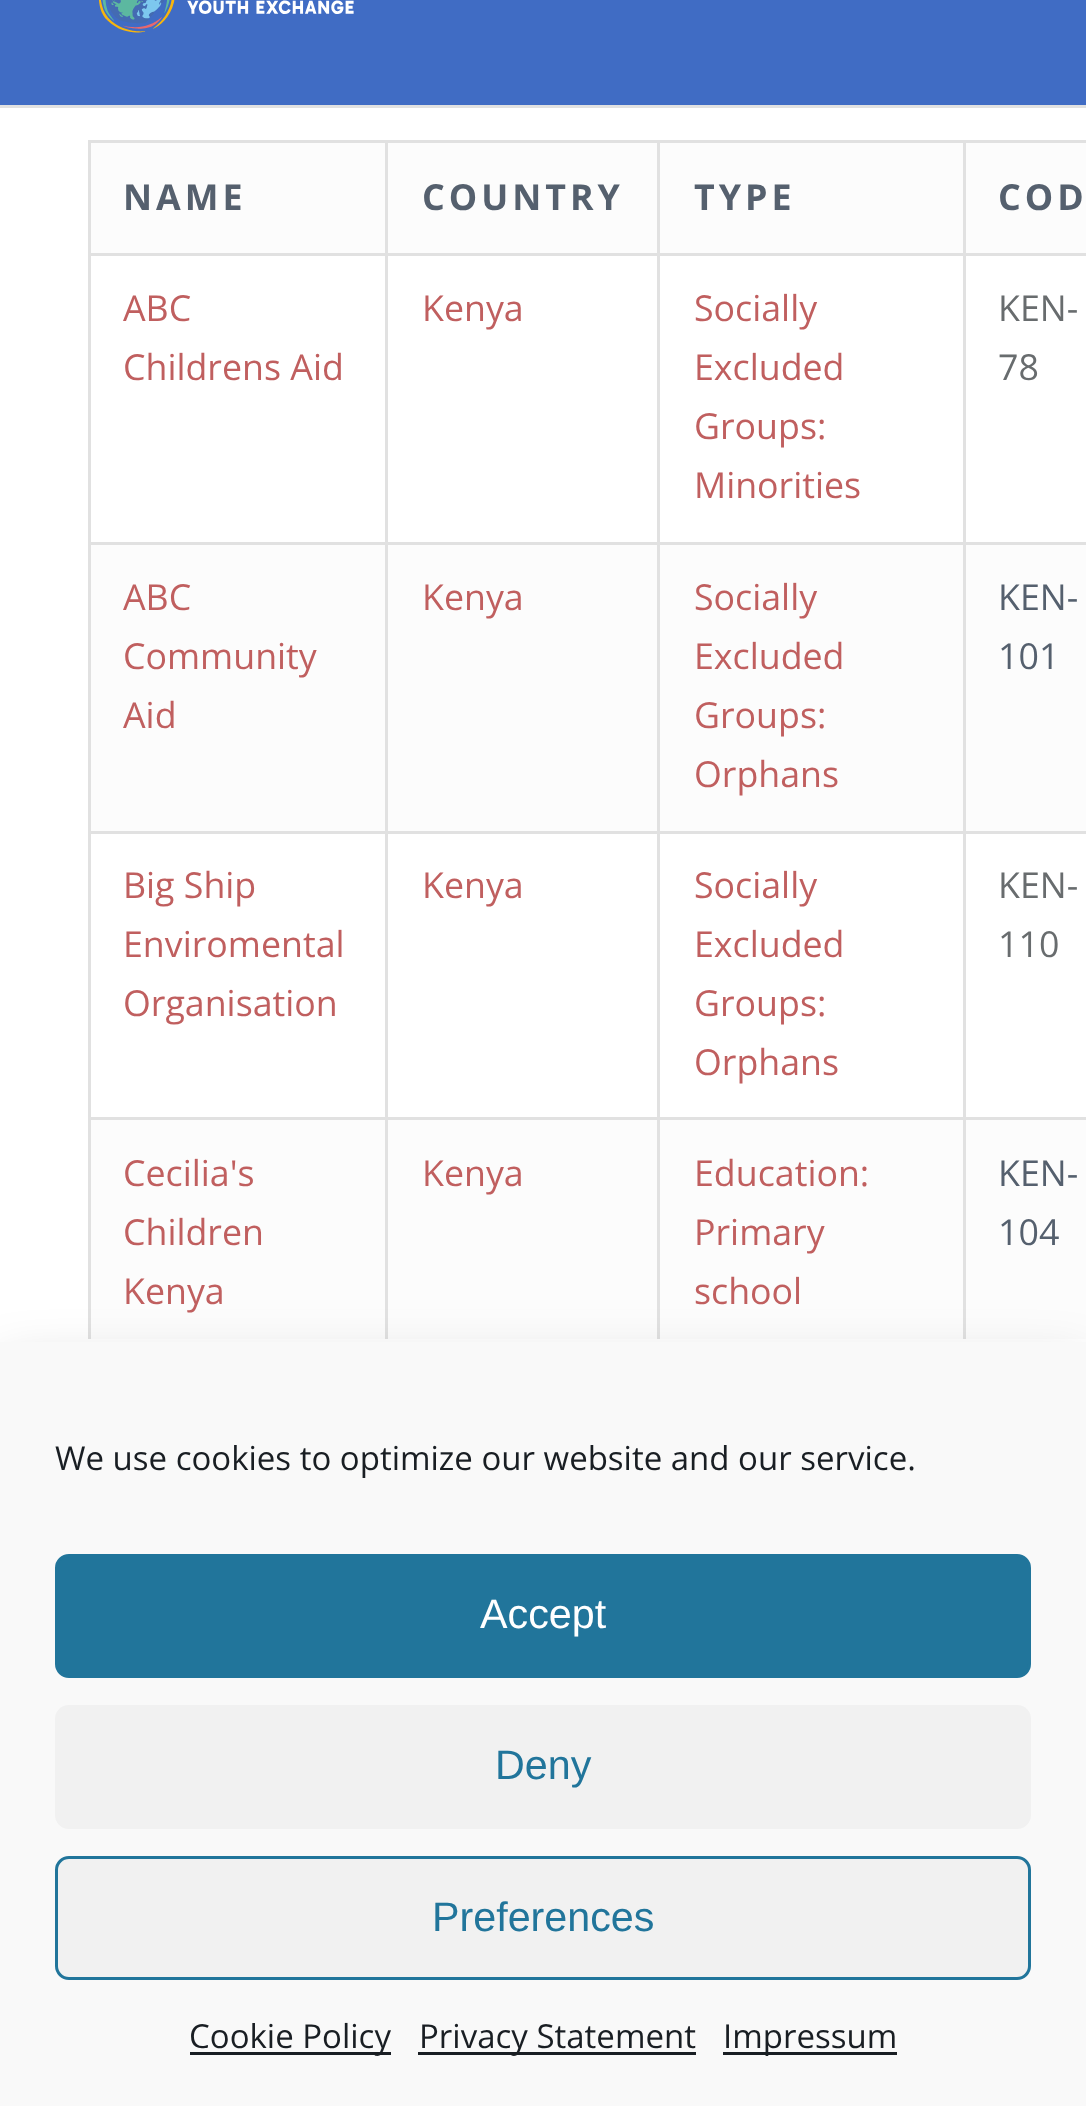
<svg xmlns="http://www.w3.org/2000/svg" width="1086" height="2106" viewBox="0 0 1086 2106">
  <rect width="100%" height="100%" fill="#fff"/>
  <path d="M0 0h1086v105H0z" fill="#406cc4"/>
  <path d="M0 105h1086v3H0z" fill="#e1e1e1"/>
  <image x="99" y="0" width="255" height="33" href="img/1.png"/>
  <path d="M91 143h995v1196H91z" fill="#fcfcfc"/>
  <path d="M88 140h998v3H88z" fill="#e1e1e1"/>
  <path d="M91 256h995v286H91z" fill="#fff"/>
  <path d="M91 834h995v283H91z" fill="#fff"/>
  <path d="M963 1117h3v222H963z" fill="#e1e1e1"/>
  <path d="M963 1117h123v3H963z" fill="#e1e1e1"/>
  <path d="M963 831h3v288H963z" fill="#e1e1e1"/>
  <path d="M963 831h123v3H963z" fill="#e1e1e1"/>
  <path d="M963 542h3v291H963z" fill="#e1e1e1"/>
  <path d="M963 542h123v3H963z" fill="#e1e1e1"/>
  <path d="M963 253h3v292H963z" fill="#e1e1e1"/>
  <path d="M963 253h123v3H963z" fill="#e1e1e1"/>
  <path d="M963 140h3v116H963z" fill="#e1e1e1"/>
  <path d="M657 1117h3v222H657z" fill="#e1e1e1"/>
  <path d="M657 1117h308v3H657z" fill="#e1e1e1"/>
  <path d="M657 831h3v288H657z" fill="#e1e1e1"/>
  <path d="M657 831h308v3H657z" fill="#e1e1e1"/>
  <path d="M657 542h3v291H657z" fill="#e1e1e1"/>
  <path d="M657 542h308v3H657z" fill="#e1e1e1"/>
  <path d="M657 253h3v292H657z" fill="#e1e1e1"/>
  <path d="M657 253h308v3H657z" fill="#e1e1e1"/>
  <path d="M657 140h3v116H657z" fill="#e1e1e1"/>
  <path d="M385 1117h3v222H385z" fill="#e1e1e1"/>
  <path d="M385 1117h275v3H385z" fill="#e1e1e1"/>
  <path d="M385 831h3v288H385z" fill="#e1e1e1"/>
  <path d="M385 831h275v3H385z" fill="#e1e1e1"/>
  <path d="M385 542h3v291H385z" fill="#e1e1e1"/>
  <path d="M385 542h275v3H385z" fill="#e1e1e1"/>
  <path d="M385 253h3v292H385z" fill="#e1e1e1"/>
  <path d="M385 253h275v3H385z" fill="#e1e1e1"/>
  <path d="M385 140h3v116H385z" fill="#e1e1e1"/>
  <path d="M88 1117h3v222H88z" fill="#e1e1e1"/>
  <path d="M88 1117h300v3H88z" fill="#e1e1e1"/>
  <path d="M88 831h3v288H88z" fill="#e1e1e1"/>
  <path d="M88 831h300v3H88z" fill="#e1e1e1"/>
  <path d="M88 542h3v291H88z" fill="#e1e1e1"/>
  <path d="M88 542h300v3H88z" fill="#e1e1e1"/>
  <path d="M88 253h3v292H88z" fill="#e1e1e1"/>
  <path d="M88 253h300v3H88z" fill="#e1e1e1"/>
  <path d="M88 140h3v116H88z" fill="#e1e1e1"/>
  <path d="M0 1367h1086v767H0z" fill="#00000030" filter="blur(27.5px)"/>
  <path d="M0 1342h1086v764H0z" fill="#f9f9f9"/>
  <rect x="56.5" y="1555.5" width="973" height="121" rx="12.5" fill="#21759b" stroke="#21759b" stroke-width="3"/>
  <rect x="55" y="1705" width="976" height="124" rx="14" fill="#f1f1f1"/>
  <rect x="56.5" y="1857.5" width="973" height="121" rx="12.5" fill="#f1f1f1" stroke="#21759b" stroke-width="3"/>
  <path d="M190 2052h201v3H190z" fill="#191e23"/>
  <path d="M418 2052h278v3H418z" fill="#191e23"/>
  <path d="M723 2052h174v3H723z" fill="#191e23"/>
  <g font-family="Open Sans" font-size="35.75" font-weight="bold" letter-spacing="4" fill="#55606e">
    <text x="123" y="210">NAME</text>
    <text x="422" y="210">COUNTRY</text>
    <text x="694" y="210">TYPE</text>
    <text x="998" y="210">COD</text>
  </g>
  <g font-family="Open Sans" font-size="35.75" fill="#c05f5f">
    <text x="123" y="321">ABC</text>
    <text x="123" y="380">Childrens Aid</text>
    <text x="422" y="321">Kenya</text>
    <text x="694" y="321">Socially</text>
    <text x="694" y="380">Excluded</text>
    <text x="694" y="439">Groups:</text>
    <text x="694" y="498">Minorities</text>
  </g>
  <g font-family="Open Sans" font-size="35.75" fill="#686c6e">
    <text x="998" y="321">KEN-</text>
    <text x="998" y="380">78</text>
  </g>
  <g font-family="Open Sans" font-size="35.75" fill="#c05f5f">
    <text x="123" y="610">ABC</text>
    <text x="123" y="669">Community</text>
    <text x="123" y="728">Aid</text>
    <text x="422" y="610">Kenya</text>
    <text x="694" y="610">Socially</text>
    <text x="694" y="669">Excluded</text>
    <text x="694" y="728">Groups:</text>
    <text x="694" y="787">Orphans</text>
  </g>
  <g font-family="Open Sans" font-size="35.75" fill="#55606e">
    <text x="998" y="610">KEN-</text>
    <text x="998" y="669">101</text>
  </g>
  <g font-family="Open Sans" font-size="35.75" fill="#c05f5f">
    <text x="123" y="898">Big Ship</text>
    <text x="123" y="957">Enviromental</text>
    <text x="123" y="1016">Organisation</text>
    <text x="422" y="898">Kenya</text>
    <text x="694" y="898">Socially</text>
    <text x="694" y="957">Excluded</text>
    <text x="694" y="1016">Groups:</text>
    <text x="694" y="1075">Orphans</text>
  </g>
  <g font-family="Open Sans" font-size="35.75" fill="#686c6e">
    <text x="998" y="898">KEN-</text>
    <text x="998" y="957">110</text>
  </g>
  <g font-family="Open Sans" font-size="35.75" fill="#c05f5f">
    <text x="123" y="1186">Cecilia's</text>
    <text x="123" y="1245">Children</text>
    <text x="123" y="1304">Kenya</text>
    <text x="422" y="1186">Kenya</text>
    <text x="694" y="1186">Education:</text>
    <text x="694" y="1245">Primary</text>
    <text x="694" y="1304">school</text>
  </g>
  <g font-family="Open Sans" font-size="35.75" fill="#55606e">
    <text x="998" y="1186">KEN-</text>
    <text x="998" y="1245">104</text>
  </g>
  <text x="55" y="1470" font-family="Open Sans" font-size="33" fill="#191e23">We use cookies to optimize our website and our service.</text>
  <text x="480" y="1628" font-family="Liberation Sans" font-size="41.25" fill="#fff">Accept</text>
  <g font-family="Liberation Sans" font-size="41.25" fill="#21759b">
    <text x="495" y="1779">Deny</text>
    <text x="432" y="1931">Preferences</text>
  </g>
  <g font-family="Open Sans" font-size="33" fill="#191e23">
    <text x="189" y="2048">Cookie Policy</text>
    <text x="419" y="2048">Privacy Statement</text>
    <text x="723" y="2048">Impressum</text>
  </g>
</svg>
